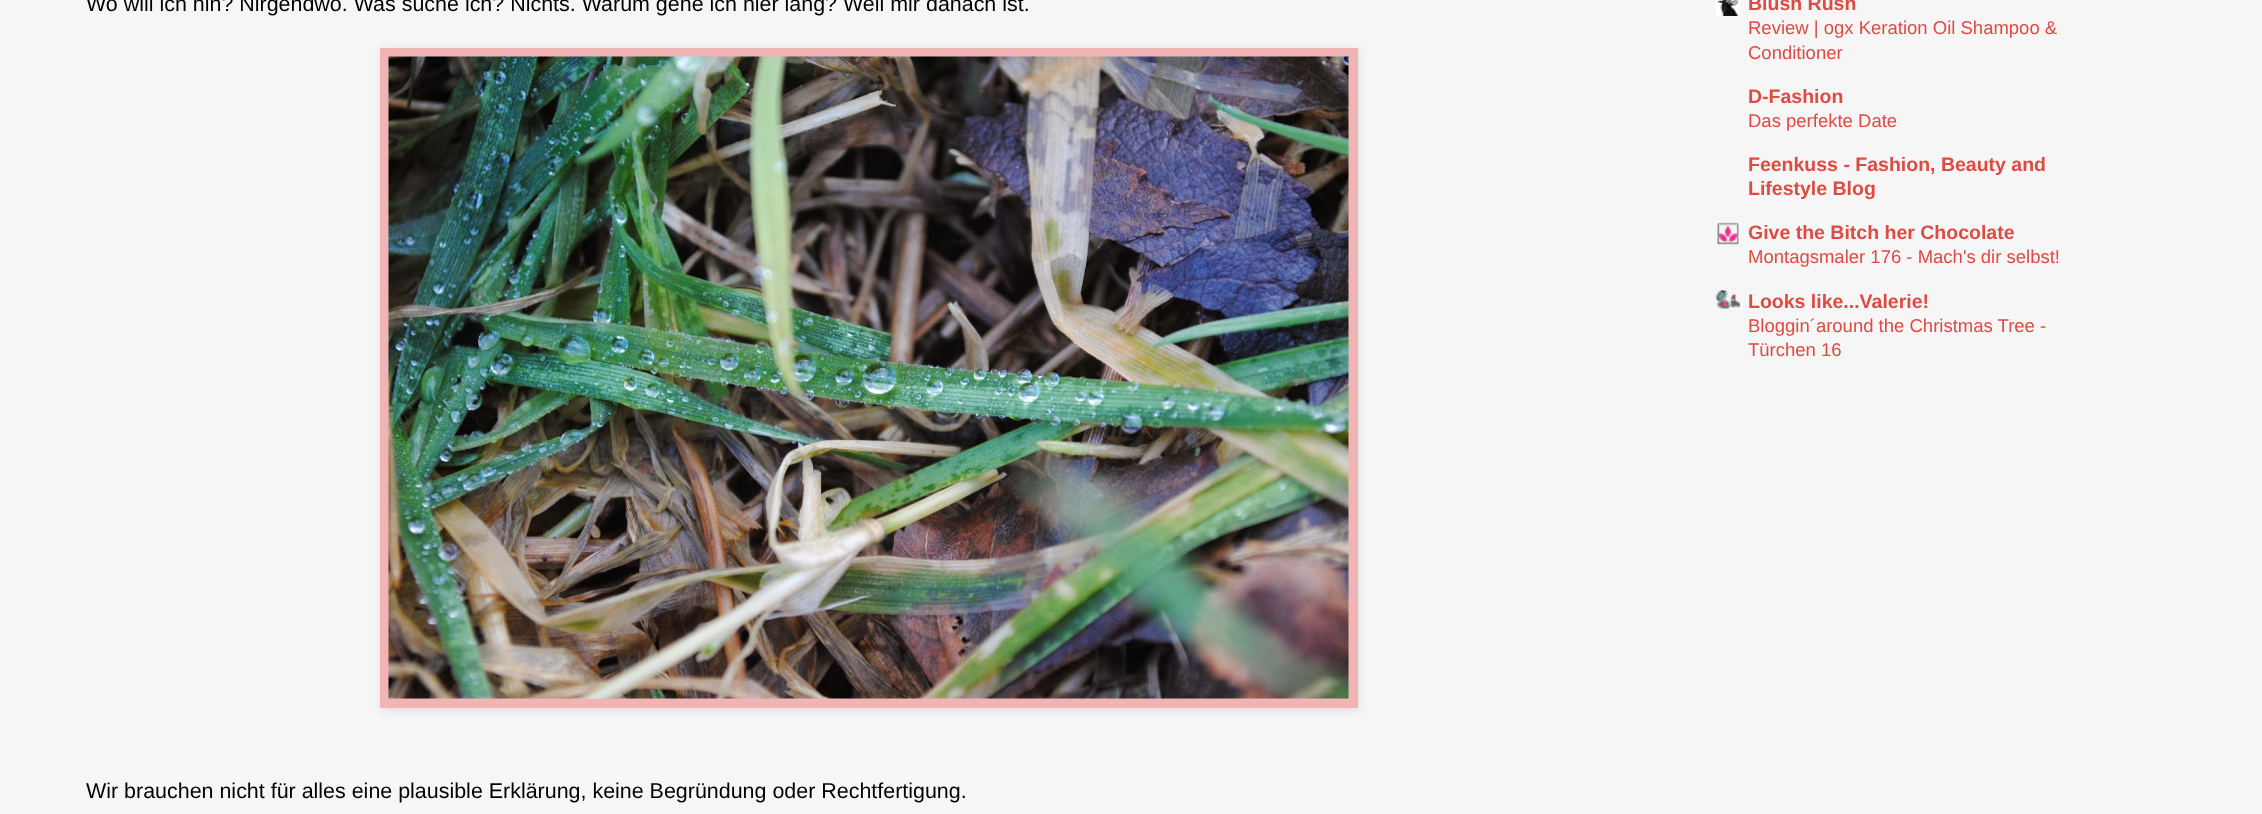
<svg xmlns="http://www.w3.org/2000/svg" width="2262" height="814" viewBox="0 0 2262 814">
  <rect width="100%" height="100%" fill="#f6f6f6"/>
  <path d="M381 50h978v660H381z" fill="#0000001a" filter="blur(4px)"/>
  <path d="M380 48h978v660H380z" fill="#f0b4b4"/>
  <image x="388" y="56" width="961" height="643" href="img/1.png"/>
  <image x="1716" y="0" width="24" height="16" href="img/2.png"/>
  <image x="1717" y="222" width="22" height="23" href="img/3.png"/>
  <image x="1716" y="290" width="24" height="19" href="img/4.png"/>
  <g font-family="Liberation Sans" font-size="21.45" fill="#000">
    <text x="86" y="11">Wo will ich hin? Nirgendwo. Was suche ich? Nichts. Warum gehe ich hier lang? Weil mir danach ist.</text>
    <text x="86" y="798">Wir brauchen nicht für alles eine plausible Erklärung, keine Begründung oder Rechtfertigung.</text>
  </g>
  <text x="1748" y="10" font-family="Liberation Sans" font-size="19.5" font-weight="bold" fill="#df4a42">Blush Rush</text>
  <g font-family="Liberation Sans" font-size="18.5" fill="#df4a42">
    <text x="1748" y="34">Review | ogx Keration Oil Shampoo &amp;</text>
    <text x="1748" y="59">Conditioner</text>
  </g>
  <text x="1748" y="103" font-family="Liberation Sans" font-size="19.5" font-weight="bold" fill="#df4a42">D-Fashion</text>
  <text x="1748" y="127" font-family="Liberation Sans" font-size="18.5" fill="#df4a42">Das perfekte Date</text>
  <g font-family="Liberation Sans" font-size="19.5" font-weight="bold" fill="#df4a42">
    <text x="1748" y="171">Feenkuss - Fashion, Beauty and</text>
    <text x="1748" y="195">Lifestyle Blog</text>
    <text x="1748" y="239">Give the Bitch her Chocolate</text>
  </g>
  <text x="1748" y="263" font-family="Liberation Sans" font-size="18.5" fill="#df4a42">Montagsmaler 176 - Mach's dir selbst!</text>
  <text x="1748" y="308" font-family="Liberation Sans" font-size="19.5" font-weight="bold" fill="#df4a42">Looks like...Valerie!</text>
  <g font-family="Liberation Sans" font-size="18.5" fill="#df4a42">
    <text x="1748" y="332">Bloggin´around the Christmas Tree -</text>
    <text x="1748" y="356">Türchen 16</text>
  </g>
</svg>
